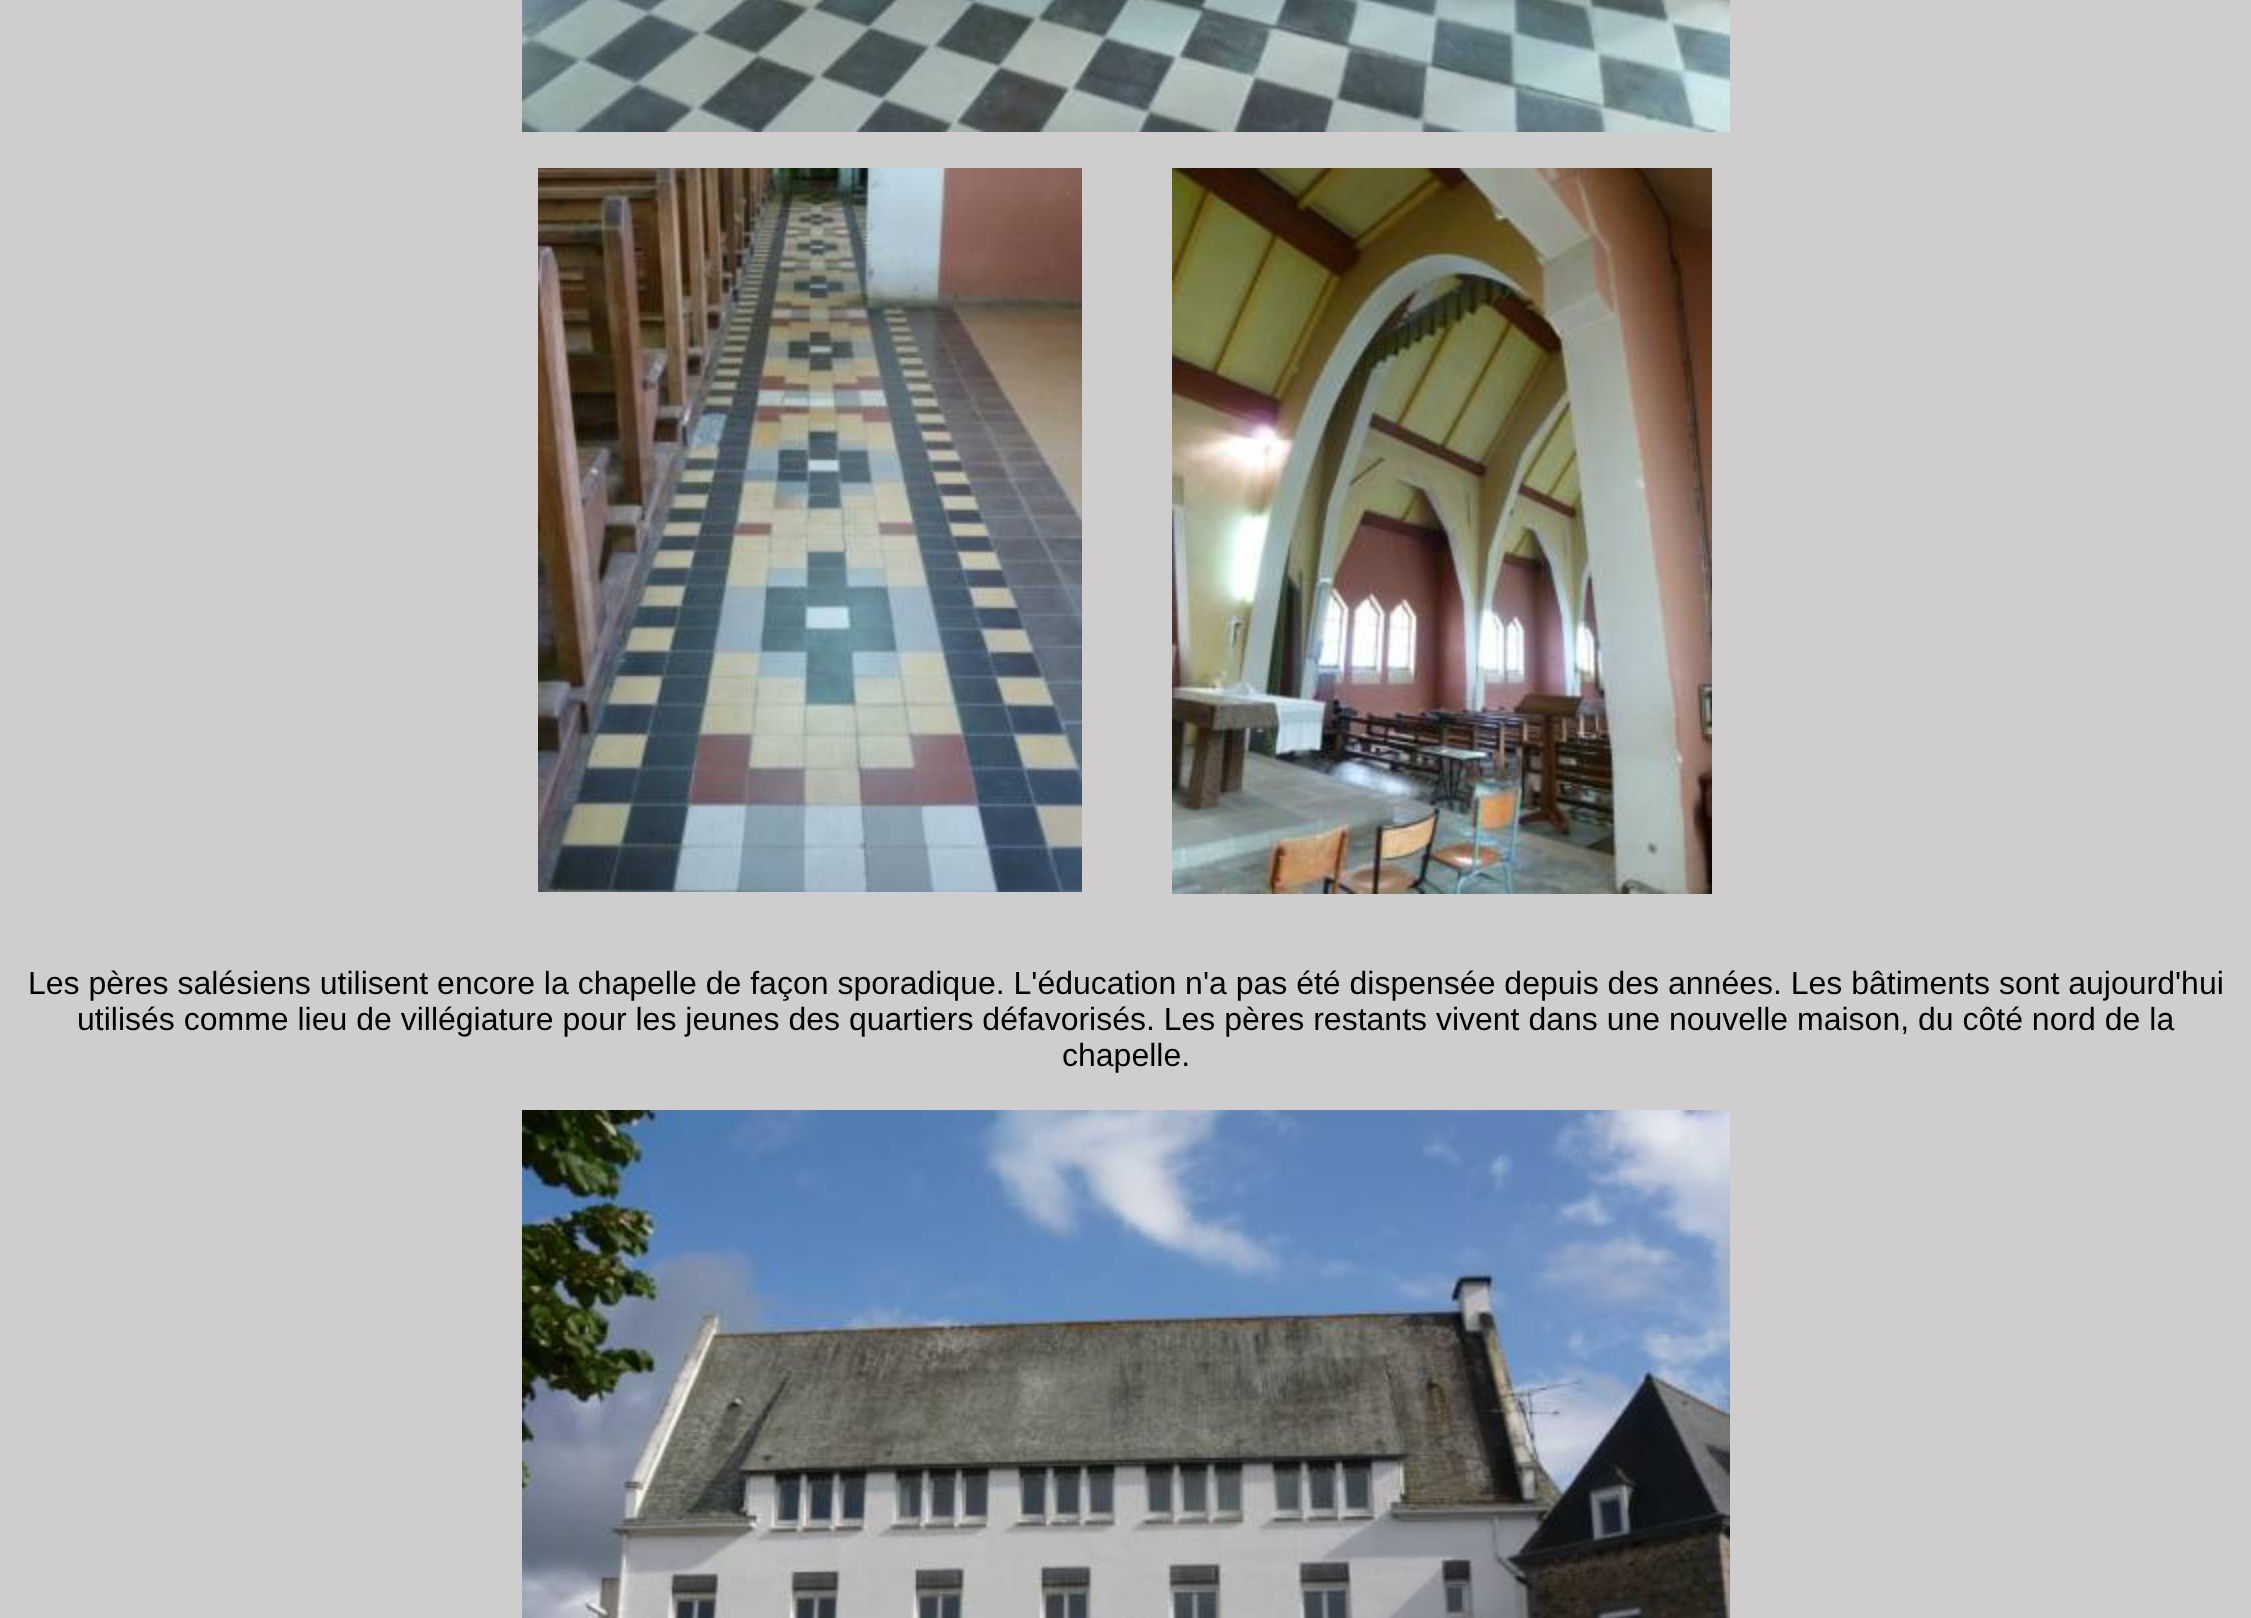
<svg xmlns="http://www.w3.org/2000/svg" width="2251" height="1618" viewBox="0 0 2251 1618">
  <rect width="100%" height="100%" fill="#cfcdcd"/>
  <image x="522" y="0" width="1208" height="132" href="img/1.png"/>
  <image x="538" y="168" width="544" height="724" href="img/2.png"/>
  <image x="1172" y="168" width="540" height="726" href="img/3.png"/>
  <image x="522" y="1110" width="1208" height="508" href="img/4.png"/>
  <g font-family="Liberation Sans" font-size="32" fill="#000">
    <text x="28" y="994">Les pères salésiens utilisent encore la chapelle de façon sporadique. L'éducation n'a pas été dispensée depuis des années. Les bâtiments sont aujourd'hui</text>
    <text x="77" y="1030">utilisés comme lieu de villégiature pour les jeunes des quartiers défavorisés. Les pères restants vivent dans une nouvelle maison, du côté nord de la</text>
    <text x="1062" y="1066">chapelle.</text>
  </g>
</svg>
